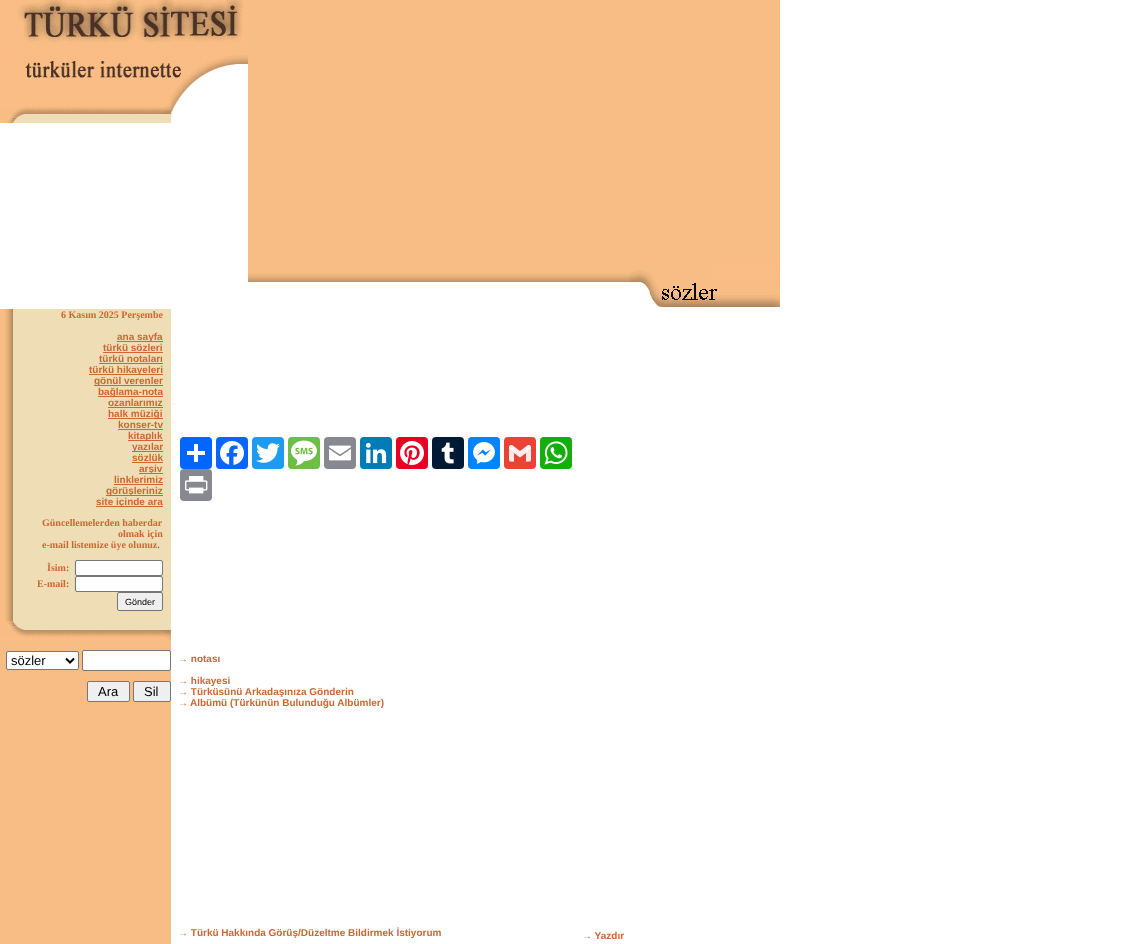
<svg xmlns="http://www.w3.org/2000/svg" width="1127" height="944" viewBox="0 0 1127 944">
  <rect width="100%" height="100%" fill="#fff"/>
  <image x="0" y="0" width="171" height="123" href="img/1.png"/>
  <image x="171" y="0" width="77" height="121" href="img/2.png"/>
  <path d="M248 0h532v267H248z" fill="#f7bd84"/>
  <image x="248" y="267" width="381" height="15" href="img/3.png"/>
  <image x="629" y="267" width="151" height="40" href="img/4.png"/>
  <path d="M0 309h171v635H0z" fill="#f7bd84"/>
  <image x="5" y="309" width="22" height="312" href="img/5.png"/>
  <path d="M27 309h144v312H27z" fill="#efdeb5"/>
  <path d="M117 341h46v1H117z" fill="#c63"/>
  <path d="M103 352h60v1H103z" fill="#c63"/>
  <path d="M99 363h64v1H99z" fill="#c63"/>
  <path d="M89 374h74v1H89z" fill="#c63"/>
  <path d="M94 385h69v1H94z" fill="#c63"/>
  <path d="M98 396h65v1H98z" fill="#c63"/>
  <path d="M108 407h55v1H108z" fill="#c63"/>
  <path d="M108 418h55v1H108z" fill="#c63"/>
  <path d="M118 429h45v1H118z" fill="#c63"/>
  <path d="M128 440h35v1H128z" fill="#c63"/>
  <path d="M132 451h31v1H132z" fill="#c63"/>
  <path d="M132 462h31v1H132z" fill="#c63"/>
  <path d="M139 473h24v1H139z" fill="#c63"/>
  <path d="M114 484h49v1H114z" fill="#c63"/>
  <path d="M106 495h57v1H106z" fill="#c63"/>
  <path d="M96 506h67v1H96z" fill="#c63"/>
  <rect x="75.5" y="560.5" width="87" height="15" rx="1.5" fill="#fff" stroke="#767676"/>
  <rect x="75.5" y="576.5" width="87" height="15" rx="1.5" fill="#fff" stroke="#767676"/>
  <rect x="117.5" y="592.5" width="45" height="18" rx="1.5" fill="#efefef" stroke="#767676"/>
  <image x="0" y="621" width="171" height="19" href="img/6.png"/>
  <rect x="6.5" y="651.5" width="72" height="18" rx="1.5" fill="#fff" stroke="#767676"/>
  <path d="M66 658.5L70 662.5L74 658.5" fill="none" stroke="#000" stroke-width="2"/>
  <rect x="82.5" y="650.5" width="88" height="20" rx="1.5" fill="#fff" stroke="#767676"/>
  <rect x="87.5" y="681.5" width="42" height="20" rx="1.5" fill="#efefef" stroke="#767676"/>
  <rect x="133.5" y="681.5" width="37" height="20" rx="1.5" fill="#efefef" stroke="#767676"/>
  <rect x="180" y="437" width="32" height="32" rx="4" fill="#0166ff"/>
  <path d="M194 444h4v18H194z" fill="#fff"/>
  <path d="M187 451h18v4H187z" fill="#fff"/>
  <rect x="216" y="437" width="32" height="32" rx="4" fill="#0866ff"/>
  <image x="220" y="441" width="24" height="24" href="img/7.png"/>
  <rect x="252" y="437" width="32" height="32" rx="4" fill="#1d9bf0"/>
  <image x="256" y="443" width="24" height="20" href="img/8.png"/>
  <rect x="288" y="437" width="32" height="32" rx="4" fill="#6cbe45"/>
  <image x="291" y="440" width="26" height="26" href="img/9.png"/>
  <rect x="324" y="437" width="32" height="32" rx="4" fill="#888990"/>
  <image x="329" y="445" width="22" height="16" href="img/10.png"/>
  <rect x="360" y="437" width="32" height="32" rx="4" fill="#007bb5"/>
  <image x="365" y="442" width="22" height="22" href="img/11.png"/>
  <rect x="396" y="437" width="32" height="32" rx="4" fill="#e60023"/>
  <image x="400" y="441" width="24" height="24" href="img/12.png"/>
  <rect x="432" y="437" width="32" height="32" rx="4" fill="#001935"/>
  <image x="441" y="442" width="13" height="22" href="img/13.png"/>
  <rect x="468" y="437" width="32" height="32" rx="4" fill="#0084ff"/>
  <image x="473" y="442" width="22" height="22" href="img/14.png"/>
  <rect x="504" y="437" width="32" height="32" rx="4" fill="#ea4335"/>
  <image x="509" y="445" width="22" height="17" href="img/15.png"/>
  <rect x="540" y="437" width="32" height="32" rx="4" fill="#12af0a"/>
  <image x="544" y="441" width="24" height="24" href="img/16.png"/>
  <rect x="180" y="469" width="32" height="32" rx="4" fill="#888990"/>
  <image x="185" y="476" width="23" height="18" href="img/17.png"/>
  <text x="61" y="318" font-family="Liberation Serif" font-size="10" font-weight="bold" fill="#c63">6 Kasım 2025 Perşembe</text>
  <g font-family="Liberation Sans" font-size="10" font-weight="bold" fill="#c63">
    <text x="117" y="340">ana sayfa</text>
    <text x="103" y="351">türkü sözleri</text>
    <text x="99" y="362">türkü notaları</text>
    <text x="89" y="373">türkü hikayeleri</text>
    <text x="94" y="384">gönül verenler</text>
    <text x="98" y="395">bağlama-nota</text>
    <text x="108" y="406">ozanlarımız</text>
    <text x="108" y="417">halk müziği</text>
    <text x="118" y="428">konser-tv</text>
    <text x="128" y="439">kitaplık</text>
    <text x="132" y="450">yazılar</text>
    <text x="132" y="461">sözlük</text>
    <text x="139" y="472">arşiv</text>
    <text x="114" y="483">linklerimiz</text>
    <text x="106" y="494">görüşleriniz</text>
    <text x="96" y="505">site içinde ara</text>
  </g>
  <g font-family="Liberation Serif" font-size="10" font-weight="bold" fill="#c63">
    <text x="42" y="526">Güncellemelerden haberdar</text>
    <text x="118" y="537">olmak için</text>
    <text x="42" y="548">e-mail listemize üye olunuz.</text>
    <text x="47" y="571">İsim:</text>
    <text x="37" y="587">E-mail:</text>
  </g>
  <text x="125" y="605" font-family="Liberation Sans" font-size="9" fill="#000">Gönder</text>
  <g font-family="Liberation Sans" font-size="13" fill="#000">
    <text x="11" y="665">sözler</text>
    <text x="98" y="696">Ara</text>
    <text x="144" y="696">Sil</text>
  </g>
  <g font-family="Liberation Sans" font-size="10" font-weight="bold" fill="#c63">
    <text x="178" y="662">→ notası</text>
    <text x="178" y="684">→ hikayesi</text>
    <text x="178" y="695">→ Türküsünü Arkadaşınıza Gönderin</text>
    <text x="178" y="706">→</text>
    <text x="190" y="706">Albümü (Türkünün Bulunduğu Albümler)</text>
    <text x="178" y="936">→ Türkü Hakkında Görüş/Düzeltme Bildirmek İstiyorum</text>
    <text x="582" y="939">→ Yazdır</text>
  </g>
</svg>
